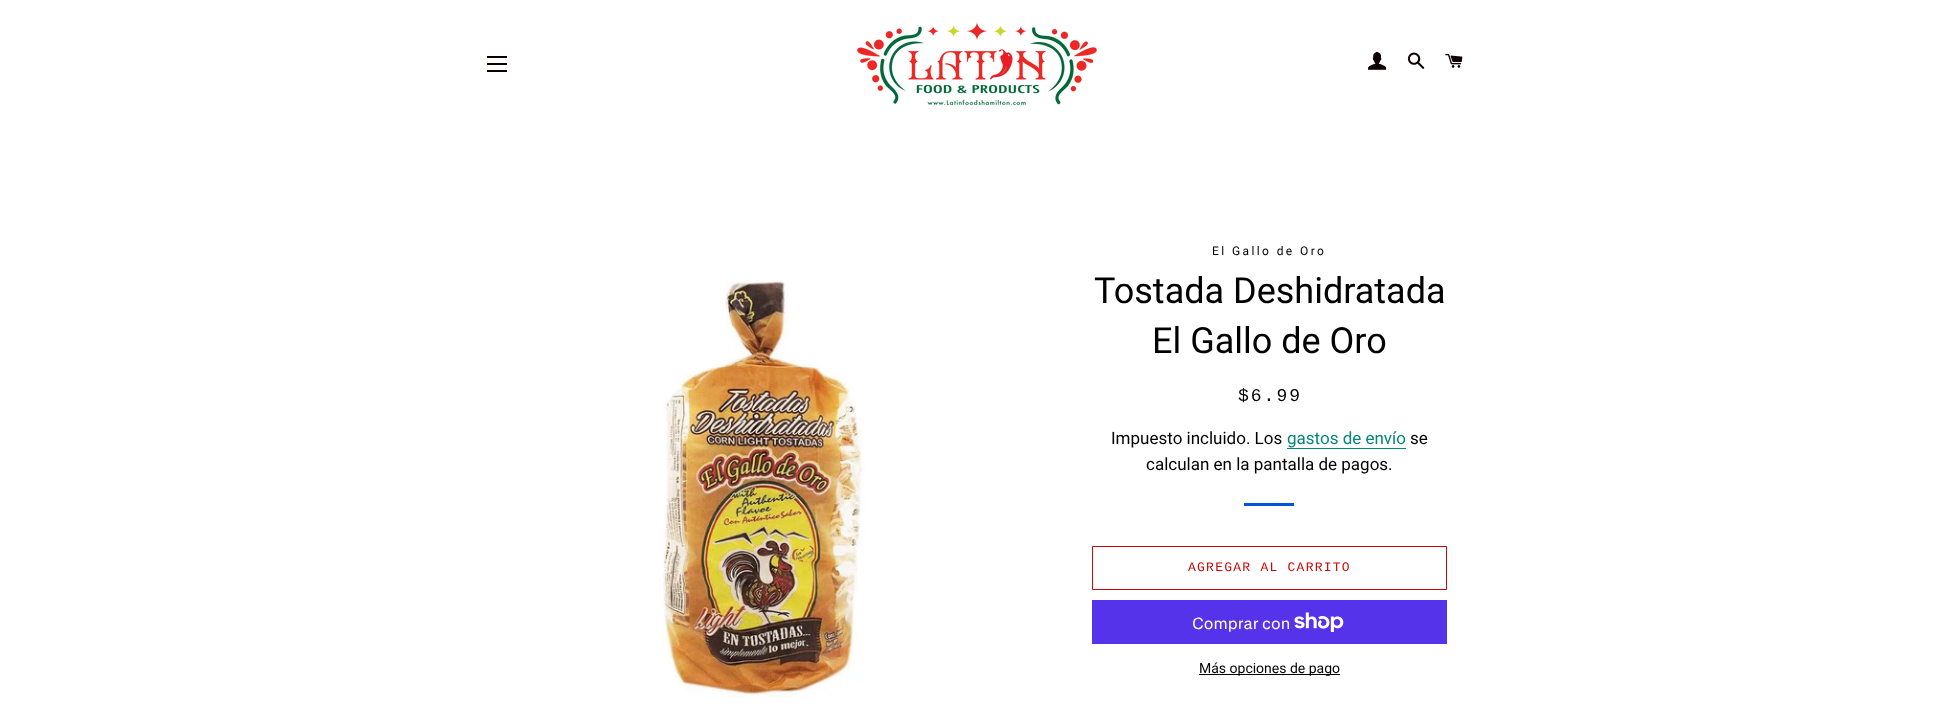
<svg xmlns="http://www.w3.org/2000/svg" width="1954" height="707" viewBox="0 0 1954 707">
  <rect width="100%" height="100%" fill="#fff"/>
  <path d="M487 56h20v2H487z" fill="#0e0101"/>
  <path d="M487 63h20v2H487z" fill="#0e0101"/>
  <path d="M487 70h20v2H487z" fill="#0e0101"/>
  <image x="857" y="22" width="240" height="84" href="img/1.png"/>
  <image x="1368" y="51" width="19" height="19" href="img/2.png"/>
  <image x="1407" y="52" width="18" height="17" href="img/3.png"/>
  <image x="1445" y="53" width="18" height="15" href="img/4.png"/>
  <image x="662" y="280" width="203" height="418" href="img/5.png"/>
  <path d="M1287 448h119v1H1287z" fill="#058677"/>
  <path d="M1244 503h50v3H1244z" fill="#0054de"/>
  <path d="M1092.5 546.5h354v43H1092.5z" fill="none" stroke="#c90808"/>
  <path d="M1092 600h355v44H1092z" fill="#5433eb"/>
  <image x="1294" y="612" width="50" height="20" href="img/6.png"/>
  <path d="M1199 674h141v1H1199z" fill="#000"/>
  <text x="1212" y="255" font-family="Roboto" font-size="12" letter-spacing="2.4" fill="#000">El Gallo de Oro</text>
  <g font-family="Roboto" font-size="36" fill="#000">
    <text x="1094" y="303">Tostada Deshidratada</text>
    <text x="1152" y="353">El Gallo de Oro</text>
  </g>
  <text x="1238" y="401" font-family="Liberation Mono" font-size="18" letter-spacing="2" fill="#000">$6.99</text>
  <text x="1111" y="444" font-family="Roboto" font-size="17" fill="#000">Impuesto incluido. Los</text>
  <text x="1287" y="444" font-family="Roboto" font-size="17" fill="#058677">gastos de envío</text>
  <g font-family="Roboto" font-size="17" fill="#000">
    <text x="1410" y="444">se</text>
    <text x="1146" y="470">calculan en la pantalla de pagos.</text>
  </g>
  <text x="1188" y="571" font-family="Liberation Mono" font-size="13" letter-spacing="1.25" fill="#c90808">AGREGAR AL CARRITO</text>
  <text x="1192" y="629" font-family="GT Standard" font-size="16" fill="#fff">Comprar con</text>
  <text x="1199" y="673" font-family="Roboto" font-size="14" fill="#000">Más opciones de pago</text>
</svg>
